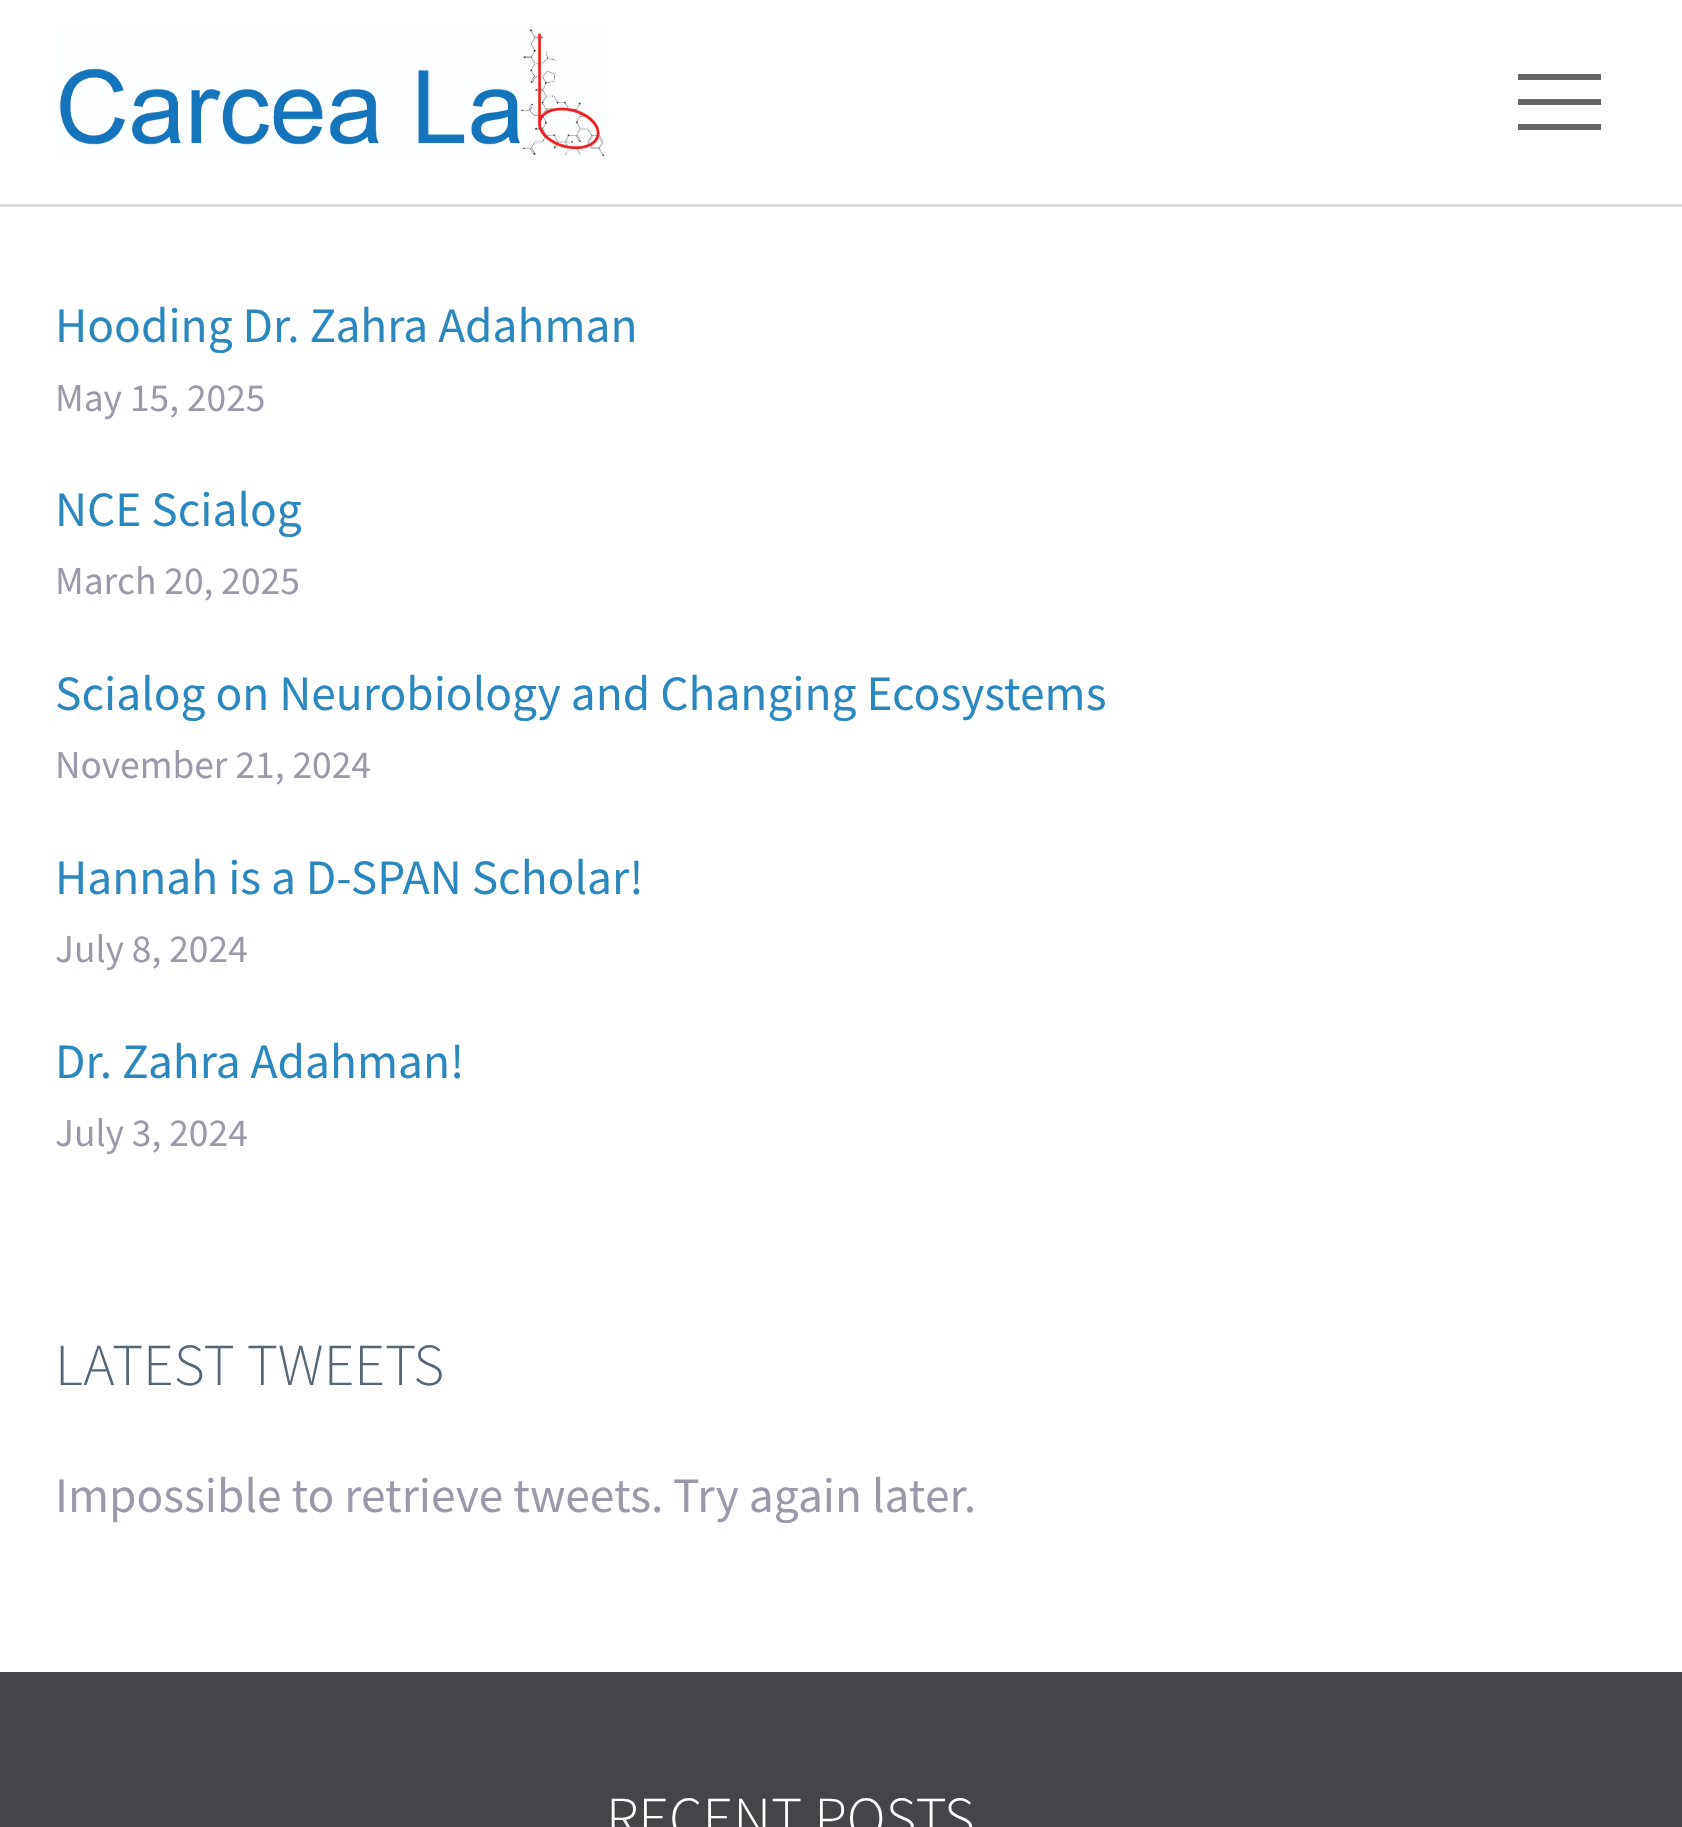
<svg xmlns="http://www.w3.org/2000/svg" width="1682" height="1827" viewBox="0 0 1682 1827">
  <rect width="100%" height="100%" fill="#fff"/>
  <path d="M0 204h1682v3H0z" fill="#ddd"/>
  <image x="58" y="27" width="547" height="130" href="img/1.png"/>
  <path d="M1518 74h83v6H1518z" fill="#666"/>
  <path d="M1518 124h83v6H1518z" fill="#666"/>
  <path d="M1518 99h83v6H1518z" fill="#666"/>
  <path d="M0 1672h1682v155H0z" fill="#444449"/>
  <text x="55" y="342" font-family="Source Sans Pro" font-size="49.5" fill="#2a88bf">Hooding Dr. Zahra Adahman</text>
  <text x="55" y="411" font-family="Source Sans Pro" font-size="39.5" fill="#99a">May 15, 2025</text>
  <text x="55" y="526" font-family="Source Sans Pro" font-size="49.5" fill="#2a88bf">NCE Scialog</text>
  <text x="55" y="594" font-family="Source Sans Pro" font-size="39.5" fill="#99a">March 20, 2025</text>
  <text x="55" y="710" font-family="Source Sans Pro" font-size="49.5" fill="#2a88bf">Scialog on Neurobiology and Changing Ecosystems</text>
  <text x="55" y="778" font-family="Source Sans Pro" font-size="39.5" fill="#99a">November 21, 2024</text>
  <text x="55" y="894" font-family="Source Sans Pro" font-size="49.5" fill="#2a88bf">Hannah is a D-SPAN Scholar!</text>
  <text x="55" y="962" font-family="Source Sans Pro" font-size="39.5" fill="#99a">July 8, 2024</text>
  <text x="55" y="1078" font-family="Source Sans Pro" font-size="49.5" fill="#2a88bf">Dr. Zahra Adahman!</text>
  <text x="55" y="1146" font-family="Source Sans Pro" font-size="39.5" fill="#99a">July 3, 2024</text>
  <text x="55" y="1385" font-family="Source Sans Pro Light" font-size="59.5" font-weight="300" fill="#567">LATEST TWEETS</text>
  <text x="55" y="1512" font-family="Source Sans Pro" font-size="49.5" fill="#99a">Impossible to retrieve tweets. Try again later.</text>
  <text x="606" y="1838" font-family="Source Sans Pro Light" font-size="59.5" font-weight="300" fill="#fff">RECENT POSTS</text>
</svg>
